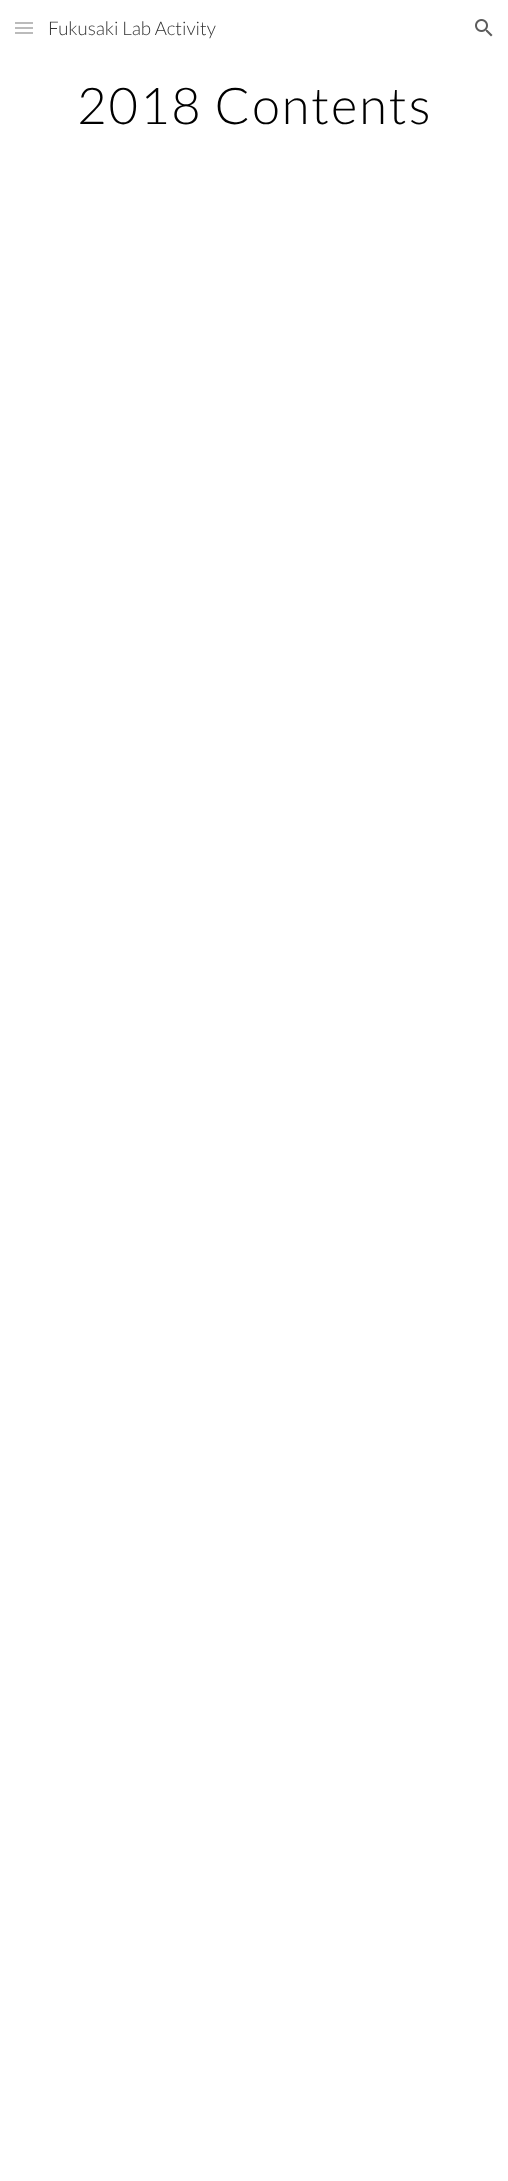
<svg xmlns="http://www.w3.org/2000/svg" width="508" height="2181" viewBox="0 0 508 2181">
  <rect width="100%" height="100%" fill="#fff"/>
  <path d="M15 22h18v2H15z" fill="#b2b2b2"/>
  <path d="M15 27h18v2H15z" fill="#b2b2b2"/>
  <path d="M15 32h18v2H15z" fill="#b2b2b2"/>
  <path d="M15 22h18v12H15z" fill="#ffffff1f"/>
  <image x="475" y="19" width="18" height="18" href="img/1.png"/>
  <text x="48" y="35" font-family="Lato" font-size="18.75" font-weight="300" fill="#333">Fukusaki Lab Activity</text>
  <text x="77" y="124" font-family="Lato" font-size="50.75" font-weight="300" letter-spacing="2" fill="#000">2018 Contents</text>
</svg>
